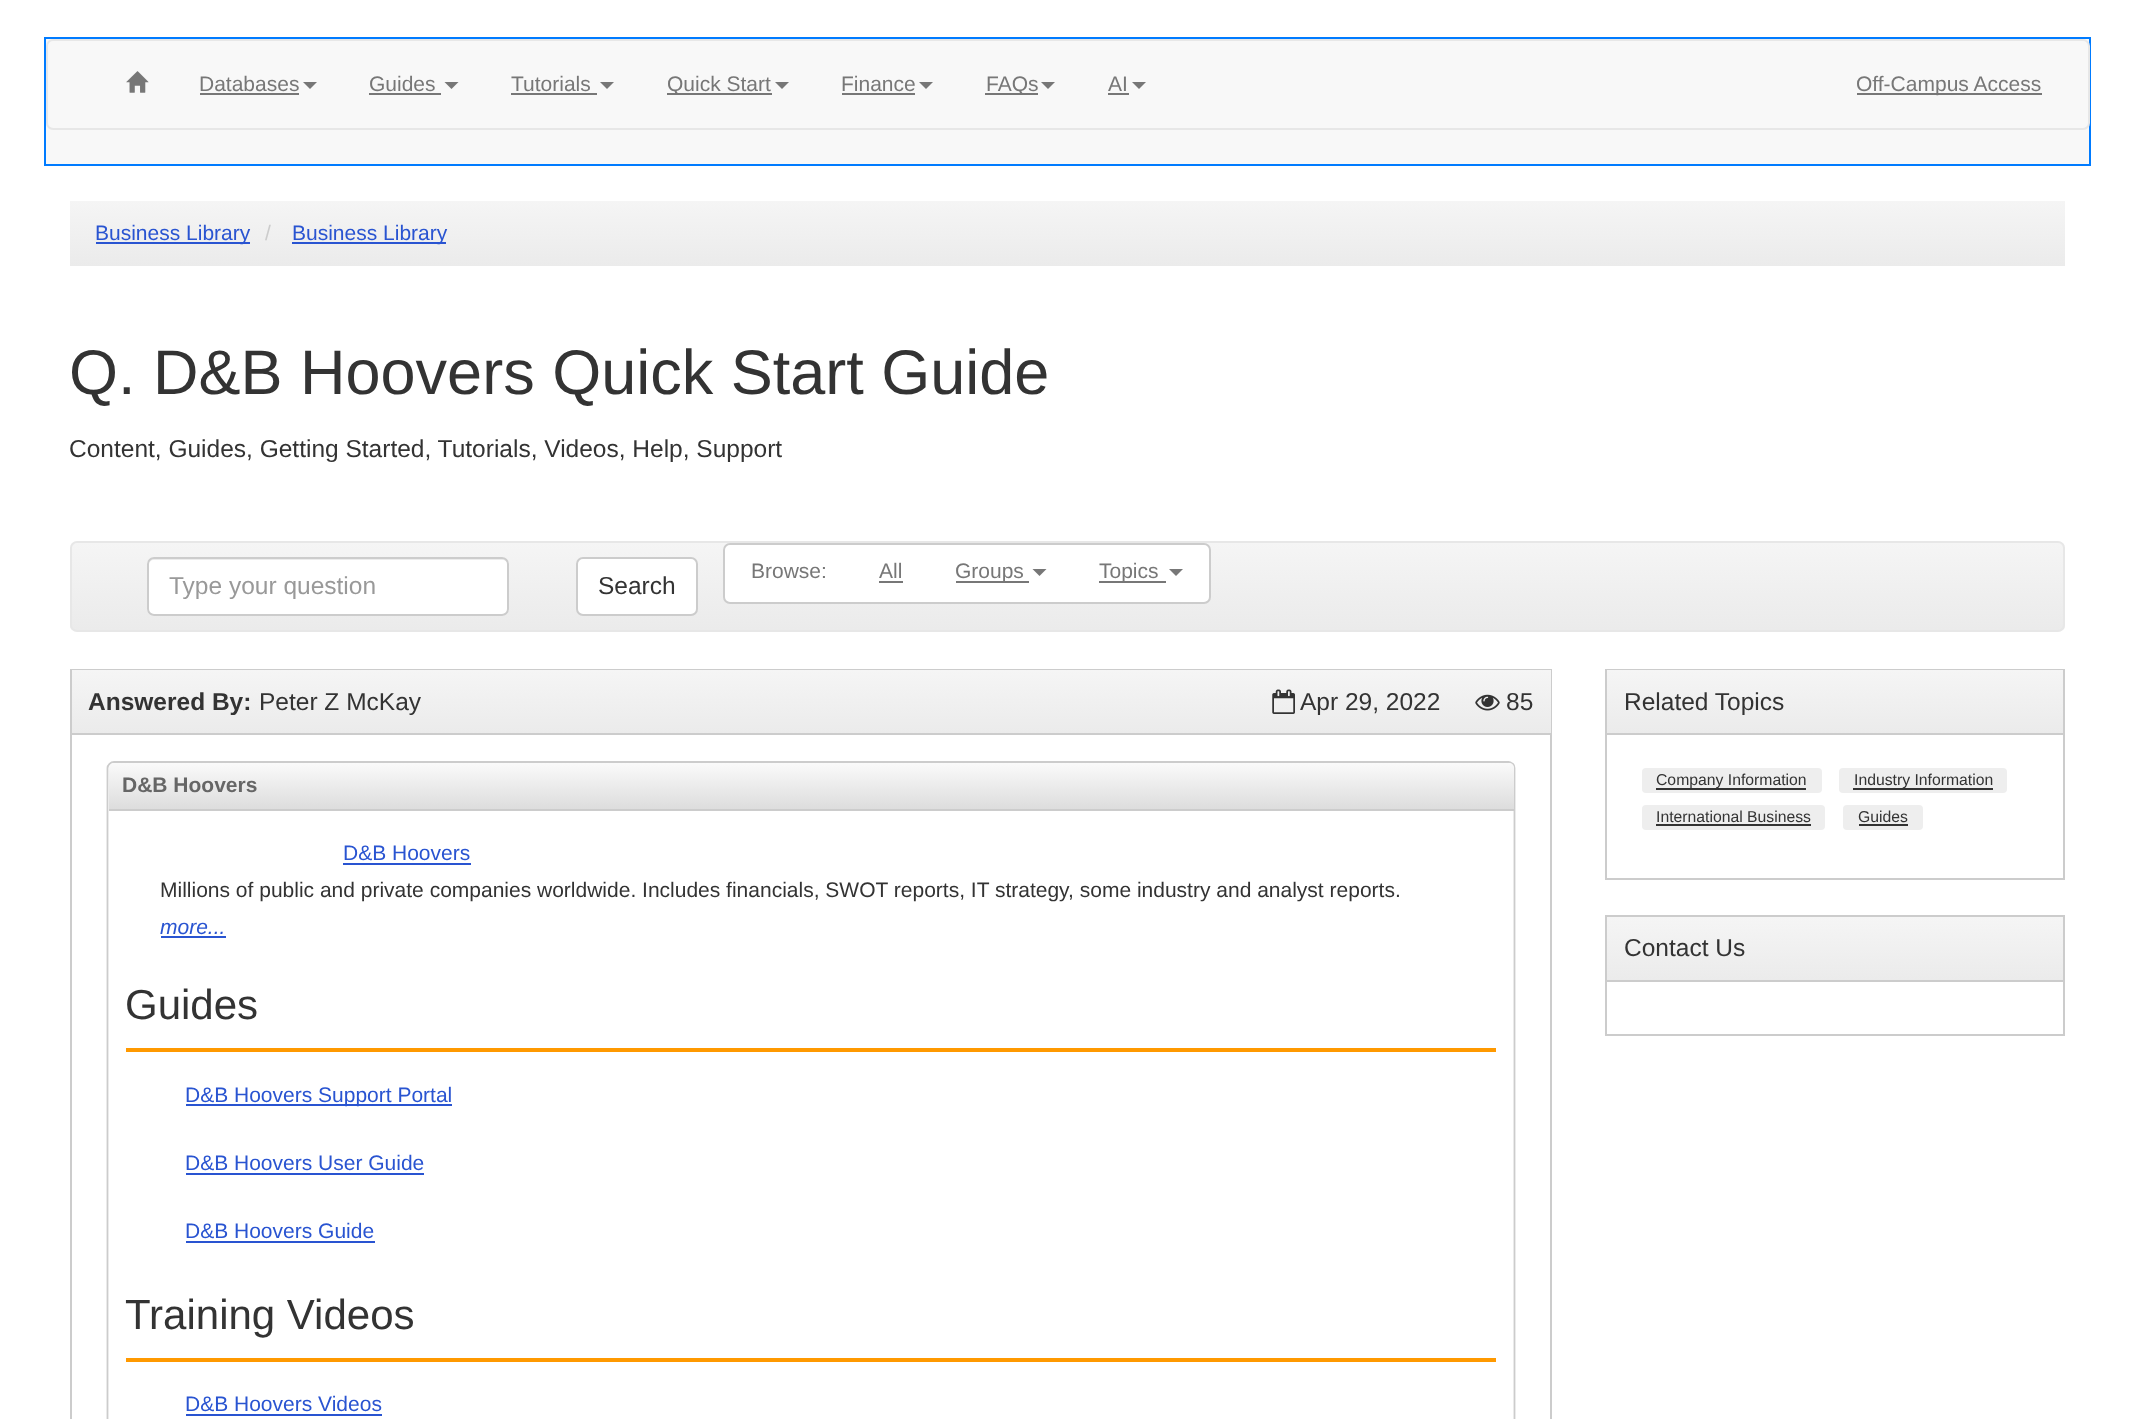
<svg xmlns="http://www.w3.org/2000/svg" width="2132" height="1419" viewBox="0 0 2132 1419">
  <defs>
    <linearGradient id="g1" gradientUnits="userSpaceOnUse" x1="1068" y1="201" x2="1068" y2="266"><stop offset="0" stop-color="#f5f5f5"/><stop offset="1" stop-color="#ebebeb"/></linearGradient>
    <clipPath id="clip1"><rect x="70" y="541" width="1995" height="91" rx="7"/></clipPath>
    <linearGradient id="g2" gradientUnits="userSpaceOnUse" x1="1068" y1="542" x2="1068" y2="630"><stop offset="0" stop-color="#f5f5f5"/><stop offset="1" stop-color="#ebebeb"/></linearGradient>
    <linearGradient id="g3" gradientUnits="userSpaceOnUse" x1="811" y1="670" x2="811" y2="733"><stop offset="0" stop-color="#f5f5f5"/><stop offset="1" stop-color="#ebebeb"/></linearGradient>
    <linearGradient id="g4" gradientUnits="userSpaceOnUse" x1="811" y1="763" x2="811" y2="809"><stop offset="0" stop-color="#fafafa"/><stop offset="1" stop-color="#ddd"/></linearGradient>
    <linearGradient id="g5" gradientUnits="userSpaceOnUse" x1="1835" y1="670" x2="1835" y2="733"><stop offset="0" stop-color="#f5f5f5"/><stop offset="1" stop-color="#ebebeb"/></linearGradient>
    <linearGradient id="g6" gradientUnits="userSpaceOnUse" x1="1835" y1="917" x2="1835" y2="980"><stop offset="0" stop-color="#f5f5f5"/><stop offset="1" stop-color="#ebebeb"/></linearGradient>
  </defs>
  <rect width="100%" height="100%" fill="#fff"/>
  <path d="M45 38h2045v127H45z" fill="#f8f8f8" stroke="#007bff" stroke-width="2"/>
  <rect x="47" y="40" width="2042" height="89" rx="6" fill="#f8f8f8" stroke="#e7e7e7" stroke-width="2"/>
  <image x="126" y="71" width="23" height="22" href="img/1.png"/>
  <path d="M200 93h99v2H200z" fill="#777"/>
  <path d="M303 82H317L310 89Z" fill="#777"/>
  <path d="M369 93h72v2H369z" fill="#777"/>
  <path d="M444.5 82H458.5L451.5 89Z" fill="#777"/>
  <path d="M511 93h86v2H511z" fill="#777"/>
  <path d="M600 82H614L607 89Z" fill="#777"/>
  <path d="M667 93h105v2H667z" fill="#777"/>
  <path d="M775 82H789L782 89Z" fill="#777"/>
  <path d="M842 93h73v2H842z" fill="#777"/>
  <path d="M919 82H933L926 89Z" fill="#777"/>
  <path d="M985 93h53v2H985z" fill="#777"/>
  <path d="M1041 82H1055L1048 89Z" fill="#777"/>
  <path d="M1108 93h21v2H1108z" fill="#777"/>
  <path d="M1132 82H1146L1139 89Z" fill="#777"/>
  <path d="M1857 93h185v2H1857z" fill="#777"/>
  <path d="M70 201h1995v65H70z" fill="url(#g1)"/>
  <path d="M96 242h154v2H96z" fill="#2954d1"/>
  <path d="M292 242h154v2H292z" fill="#2954d1"/>
  <g clip-path="url(#clip1)">
    <path d="M70 543h1995v87H70z" fill="url(#g2)"/>
  </g>
  <rect x="71" y="542" width="1993" height="89" rx="6" fill="none" stroke="#e7e7e7" stroke-width="2"/>
  <rect x="724" y="544" width="486" height="59" rx="6" fill="#fff" stroke="#ccc" stroke-width="2"/>
  <path d="M879 581h24v2H879z" fill="#777"/>
  <path d="M956 581h73v2H956z" fill="#777"/>
  <path d="M1032.5 569H1046.5L1039.5 576Z" fill="#777"/>
  <path d="M1099 581h67v2H1099z" fill="#777"/>
  <path d="M1169 569H1183L1176 576Z" fill="#777"/>
  <rect x="147" y="557" width="362" height="59" rx="7" fill="#fff"/>
  <path d="M154 560H502C505 560 508 562 508 565C508 562 507 558 503 558H154C150 558 149 562 149 565C149 562 151 560 154 560Z" fill="#ececec"/>
  <rect x="148" y="558" width="360" height="57" rx="6" fill="none" stroke="#ccc" stroke-width="2"/>
  <rect x="577" y="558" width="120" height="57" rx="6" fill="#fff" stroke="#ccc" stroke-width="2"/>
  <path d="M71 670h1480v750H71z" fill="none" stroke="#ccc" stroke-width="2"/>
  <path d="M72 670h1479v63H72z" fill="url(#g3)"/>
  <path d="M72 733h1479v2H72z" fill="#ccc"/>
  <image x="1272" y="689" width="23" height="25" href="img/2.png"/>
  <image x="1475" y="694" width="25" height="17" href="img/3.png"/>
  <path d="M109.5 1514.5C108.5 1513.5 107.5 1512 107.5 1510V768C107.5 766.5 108.5 765 109.5 764C110.5 763 112 762 114 762H1508.5C1510 762 1511.5 763 1513 764C1514 765 1514.5 766.5 1514.5 768V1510C1514.5 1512 1514 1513.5 1513 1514.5" fill="none" stroke="#ccc" stroke-width="1.8"/>
  <path d="M114 763H1509C1512 763 1514 765 1514 768V809H109V768C109 765 111 763 114 763Z" fill="url(#g4)"/>
  <path d="M109 809h1405v2H109z" fill="#ccc"/>
  <path d="M343 863h128v2H343z" fill="#2954d1"/>
  <path d="M161 936h65v2H161z" fill="#2954d1"/>
  <path d="M126 1048h1370v4H126z" fill="#f90"/>
  <path d="M186 1104h266v2H186z" fill="#2954d1"/>
  <path d="M186 1173h238v2H186z" fill="#2954d1"/>
  <path d="M186 1241h189v2H186z" fill="#2954d1"/>
  <path d="M126 1358h1370v4H126z" fill="#f90"/>
  <path d="M186 1414h196v2H186z" fill="#2954d1"/>
  <path d="M1606 670h458v209H1606z" fill="none" stroke="#ccc" stroke-width="2"/>
  <path d="M1607 670h456v63H1607z" fill="url(#g5)"/>
  <path d="M1607 733h456v2H1607z" fill="#ccc"/>
  <rect x="1642" y="768" width="180" height="25" rx="4" fill="#eee"/>
  <path d="M1656 788h150v2H1656z" fill="#333"/>
  <rect x="1839" y="768" width="168" height="25" rx="4" fill="#eee"/>
  <path d="M1853 788h140v2H1853z" fill="#333"/>
  <rect x="1642" y="805" width="183" height="25" rx="4" fill="#eee"/>
  <path d="M1656 824h155v2H1656z" fill="#333"/>
  <rect x="1843" y="805" width="80" height="25" rx="4" fill="#eee"/>
  <path d="M1859 824h49v2H1859z" fill="#333"/>
  <path d="M1606 916h458v119H1606z" fill="none" stroke="#ccc" stroke-width="2"/>
  <path d="M1607 917h456v63H1607z" fill="url(#g6)"/>
  <path d="M1607 980h456v2H1607z" fill="#ccc"/>
  <g font-family="Liberation Sans" font-size="21" fill="#777">
    <text x="199" y="91">Databases</text>
    <text x="369" y="91">Guides</text>
    <text x="511" y="91">Tutorials</text>
    <text x="667" y="91">Quick Start</text>
    <text x="841" y="91">Finance</text>
    <text x="986" y="91">FAQs</text>
    <text x="1108" y="91">AI</text>
    <text x="1856" y="91">Off-Campus Access</text>
  </g>
  <text x="95" y="240" font-family="Liberation Sans" font-size="21" fill="#2954d1">Business Library</text>
  <text x="265" y="240" font-family="Liberation Sans" font-size="21" fill="#ccc">/</text>
  <text x="292" y="240" font-family="Liberation Sans" font-size="21" fill="#2954d1">Business Library</text>
  <text x="69" y="394" font-family="Liberation Sans" font-size="63" fill="#333">Q. D&amp;B Hoovers Quick Start Guide</text>
  <text x="69" y="457" font-family="Liberation Sans" font-size="24.5" fill="#333">Content, Guides, Getting Started, Tutorials, Videos, Help, Support</text>
  <g font-family="Liberation Sans" font-size="21" fill="#777">
    <text x="751" y="578">Browse:</text>
    <text x="879" y="578">All</text>
    <text x="955" y="578">Groups</text>
    <text x="1099" y="578">Topics</text>
  </g>
  <text x="169" y="594" font-family="Liberation Sans" font-size="24.5" fill="#999">Type your question</text>
  <text x="598" y="594" font-family="Liberation Sans" font-size="24.5" fill="#333">Search</text>
  <text x="88" y="710" font-family="Liberation Sans" font-size="24.5" font-weight="bold" fill="#333">Answered By:</text>
  <g font-family="Liberation Sans" font-size="24.5" fill="#333">
    <text x="259" y="710">Peter Z McKay</text>
    <text x="1300" y="710">Apr 29, 2022</text>
    <text x="1506" y="710">85</text>
  </g>
  <text x="122" y="792" font-family="Liberation Sans" font-size="21" font-weight="bold" fill="#666">D&amp;B Hoovers</text>
  <text x="343" y="860" font-family="Liberation Sans" font-size="21" fill="#2954d1">D&amp;B Hoovers</text>
  <text x="160" y="897" font-family="Liberation Sans" font-size="21" fill="#333">Millions of public and private companies worldwide. Includes financials, SWOT reports, IT strategy, some industry and analyst reports.</text>
  <text x="160" y="934" font-family="Liberation Sans" font-size="21" font-style="italic" fill="#2954d1">more...</text>
  <text x="125" y="1019" font-family="Liberation Sans" font-size="42" fill="#333">Guides</text>
  <g font-family="Liberation Sans" font-size="21" fill="#2954d1">
    <text x="185" y="1102">D&amp;B Hoovers Support Portal</text>
    <text x="185" y="1170">D&amp;B Hoovers User Guide</text>
    <text x="185" y="1238">D&amp;B Hoovers Guide</text>
  </g>
  <text x="125" y="1329" font-family="Liberation Sans" font-size="42" fill="#333">Training Videos</text>
  <text x="185" y="1411" font-family="Liberation Sans" font-size="21" fill="#2954d1">D&amp;B Hoovers Videos</text>
  <text x="1624" y="710" font-family="Liberation Sans" font-size="24.5" fill="#333">Related Topics</text>
  <g font-family="Liberation Sans" font-size="15.75" fill="#333">
    <text x="1656" y="785">Company Information</text>
    <text x="1854" y="785">Industry Information</text>
    <text x="1656" y="822">International Business</text>
    <text x="1858" y="822">Guides</text>
  </g>
  <text x="1624" y="956" font-family="Liberation Sans" font-size="24.5" fill="#333">Contact Us</text>
</svg>
